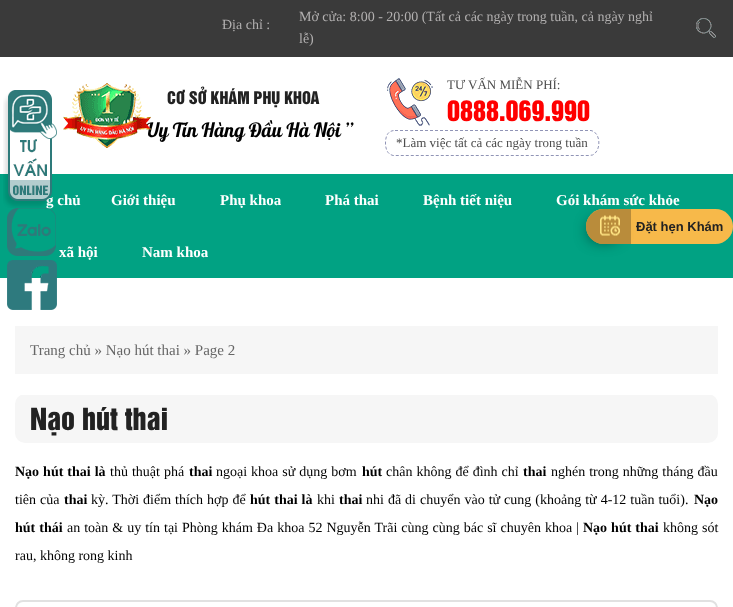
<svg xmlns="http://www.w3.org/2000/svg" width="733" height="607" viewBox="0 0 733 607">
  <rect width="100%" height="100%" fill="#fff"/>
  <path d="M0 0h733v57H0z" fill="#3a3a3a"/>
  <image x="696" y="18" width="20" height="20" href="img/1.png"/>
  <image x="387" y="78" width="46" height="48" href="img/4.png"/>
  <path d="M395 130.5H591C601 132.5 601.5 151 592.5 155L589 155.5H393C387 154 385.5 148.5 385.5 143C385.5 136.5 387.5 130.5 395 130.5Z" fill="none" stroke="#9094b6" stroke-dasharray="3 2"/>
  <path d="M0 174h733v104H0z" fill="#01a283"/>
  <image x="7" y="260" width="50" height="50" href="img/6.png"/>
  <rect x="586" y="209" width="147" height="35" rx="17.5" fill="#f7b94a"/>
  <rect x="590" y="222" width="27" height="17" rx="8.5" fill="#000000c4" filter="blur(8px)"/>
  <path d="M603.5 209H631V244H603.5C594 244 586 236 586 226.5C586 217 594 209 603.5 209Z" fill="#b98c3b"/>
  <image x="600" y="215" width="20" height="21" href="img/7.png"/>
  <path d="M15 326h703v48H15z" fill="#f6f6f6"/>
  <rect x="15" y="394" width="703" height="49" rx="10" fill="#f6f6f6"/>
  <path d="M20 394h693v1H20z" fill="#fff"/>
  <rect x="16" y="601" width="701" height="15" rx="7" fill="none" stroke="#e1e1e1" stroke-width="2"/>
  <g font-family="Liberation Serif" font-size="14" fill="#b2b0b0">
    <text x="222" y="29">Địa chỉ :</text>
    <text x="299" y="21">Mở cửa: 8:00 - 20:00 (Tất cả các ngày trong tuần, cả ngày nghỉ</text>
    <text x="299" y="43">lễ)</text>
  </g>
  <text x="167" y="104" font-family="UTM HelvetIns" font-size="16" fill="#222">CƠ SỞ KHÁM PHỤ KHOA</text>
  <text x="145" y="137" font-family="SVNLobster" font-size="24" fill="#000">Uy Tín Hàng Đầu Hà Nội ”</text>
  <image x="63" y="83" width="88" height="65" href="img/3.png"/>
  <text x="447" y="89" font-family="Liberation Serif" font-size="13" fill="#4d4d4d">TƯ VẤN MIỄN PHÍ:</text>
  <text x="447" y="121" font-family="UTM HelvetIns" font-size="26" fill="#f00">0888.069.990</text>
  <text x="396" y="147" font-family="Liberation Serif" font-size="13" fill="#4d4d4d">*Làm việc tất cả các ngày trong tuần</text>
  <text x="46" y="205" font-family="Liberation Serif" font-size="15" font-weight="bold" fill="#fff">g chủ</text>
  <image x="3" y="90" width="54" height="118" href="img/2.png"/>
  <image x="7" y="208" width="49" height="48" href="img/5.png"/>
  <g font-family="Liberation Serif" font-size="15" font-weight="bold" fill="#fff">
    <text x="111" y="205">Giới thiệu</text>
    <text x="220" y="205">Phụ khoa</text>
    <text x="325" y="205">Phá thai</text>
    <text x="423" y="205">Bệnh tiết niệu</text>
    <text x="556" y="205">Gói khám sức khỏe</text>
    <text x="59" y="257">xã hội</text>
    <text x="142" y="257">Nam khoa</text>
  </g>
  <text x="636" y="231" font-family="Liberation Sans" font-size="13" font-weight="bold" fill="#222">Đặt hẹn Khám</text>
  <text x="30" y="355" font-family="Liberation Serif" font-size="15" fill="#666">Trang chủ » Nạo hút thai » Page 2</text>
  <text x="30" y="430" font-family="UTM HelvetIns" font-size="28" fill="#222">Nạo hút thai</text>
  <text x="15" y="476" word-spacing="0.5" font-family="Liberation Serif" font-size="14" font-weight="bold" fill="#000">Nạo hút thai là</text>
  <text x="110" y="476" word-spacing="0.5" font-family="Liberation Serif" font-size="14" fill="#000">thủ thuật phá</text>
  <text x="189" y="476" font-family="Liberation Serif" font-size="14" font-weight="bold" fill="#000">thai</text>
  <text x="216" y="476" word-spacing="0.5" font-family="Liberation Serif" font-size="14" fill="#000">ngoại khoa sử dụng bơm</text>
  <text x="362" y="476" font-family="Liberation Serif" font-size="14" font-weight="bold" fill="#000">hút</text>
  <text x="386" y="476" word-spacing="0.5" font-family="Liberation Serif" font-size="14" fill="#000">chân không để đình chỉ</text>
  <text x="523" y="476" font-family="Liberation Serif" font-size="14" font-weight="bold" fill="#000">thai</text>
  <g font-family="Liberation Serif" font-size="14" fill="#000">
    <text x="551" y="476" word-spacing="0.5">nghén trong những tháng đầu</text>
    <text x="15" y="504" word-spacing="0.5">tiên của</text>
  </g>
  <text x="64" y="504" font-family="Liberation Serif" font-size="14" font-weight="bold" fill="#000">thai</text>
  <text x="91" y="504" word-spacing="0.5" font-family="Liberation Serif" font-size="14" fill="#000">kỳ. Thời điểm thích hợp để</text>
  <text x="250" y="504" word-spacing="0.5" font-family="Liberation Serif" font-size="14" font-weight="bold" fill="#000">hút thai là</text>
  <text x="317" y="504" font-family="Liberation Serif" font-size="14" fill="#000">khi</text>
  <text x="339" y="504" font-family="Liberation Serif" font-size="14" font-weight="bold" fill="#000">thai</text>
  <text x="366" y="504" word-spacing="0.5" font-family="Liberation Serif" font-size="14" fill="#000">nhi đã di chuyển vào tử cung (khoảng từ 4-12 tuần tuổi).</text>
  <g font-family="Liberation Serif" font-size="14" font-weight="bold" fill="#000">
    <text x="694" y="504">Nạo</text>
    <text x="15" y="532" word-spacing="0.5">hút thái</text>
  </g>
  <text x="67" y="532" word-spacing="0.5" font-family="Liberation Serif" font-size="14" fill="#000">an toàn &amp; uy tín tại Phòng khám Đa khoa 52 Nguyễn Trãi cùng cùng bác sĩ chuyên khoa |</text>
  <text x="583" y="532" word-spacing="0.5" font-family="Liberation Serif" font-size="14" font-weight="bold" fill="#000">Nạo hút thai</text>
  <g font-family="Liberation Serif" font-size="14" fill="#000">
    <text x="663" y="532" word-spacing="0.5">không sót</text>
    <text x="15" y="560">rau, không rong kinh</text>
  </g>
</svg>
